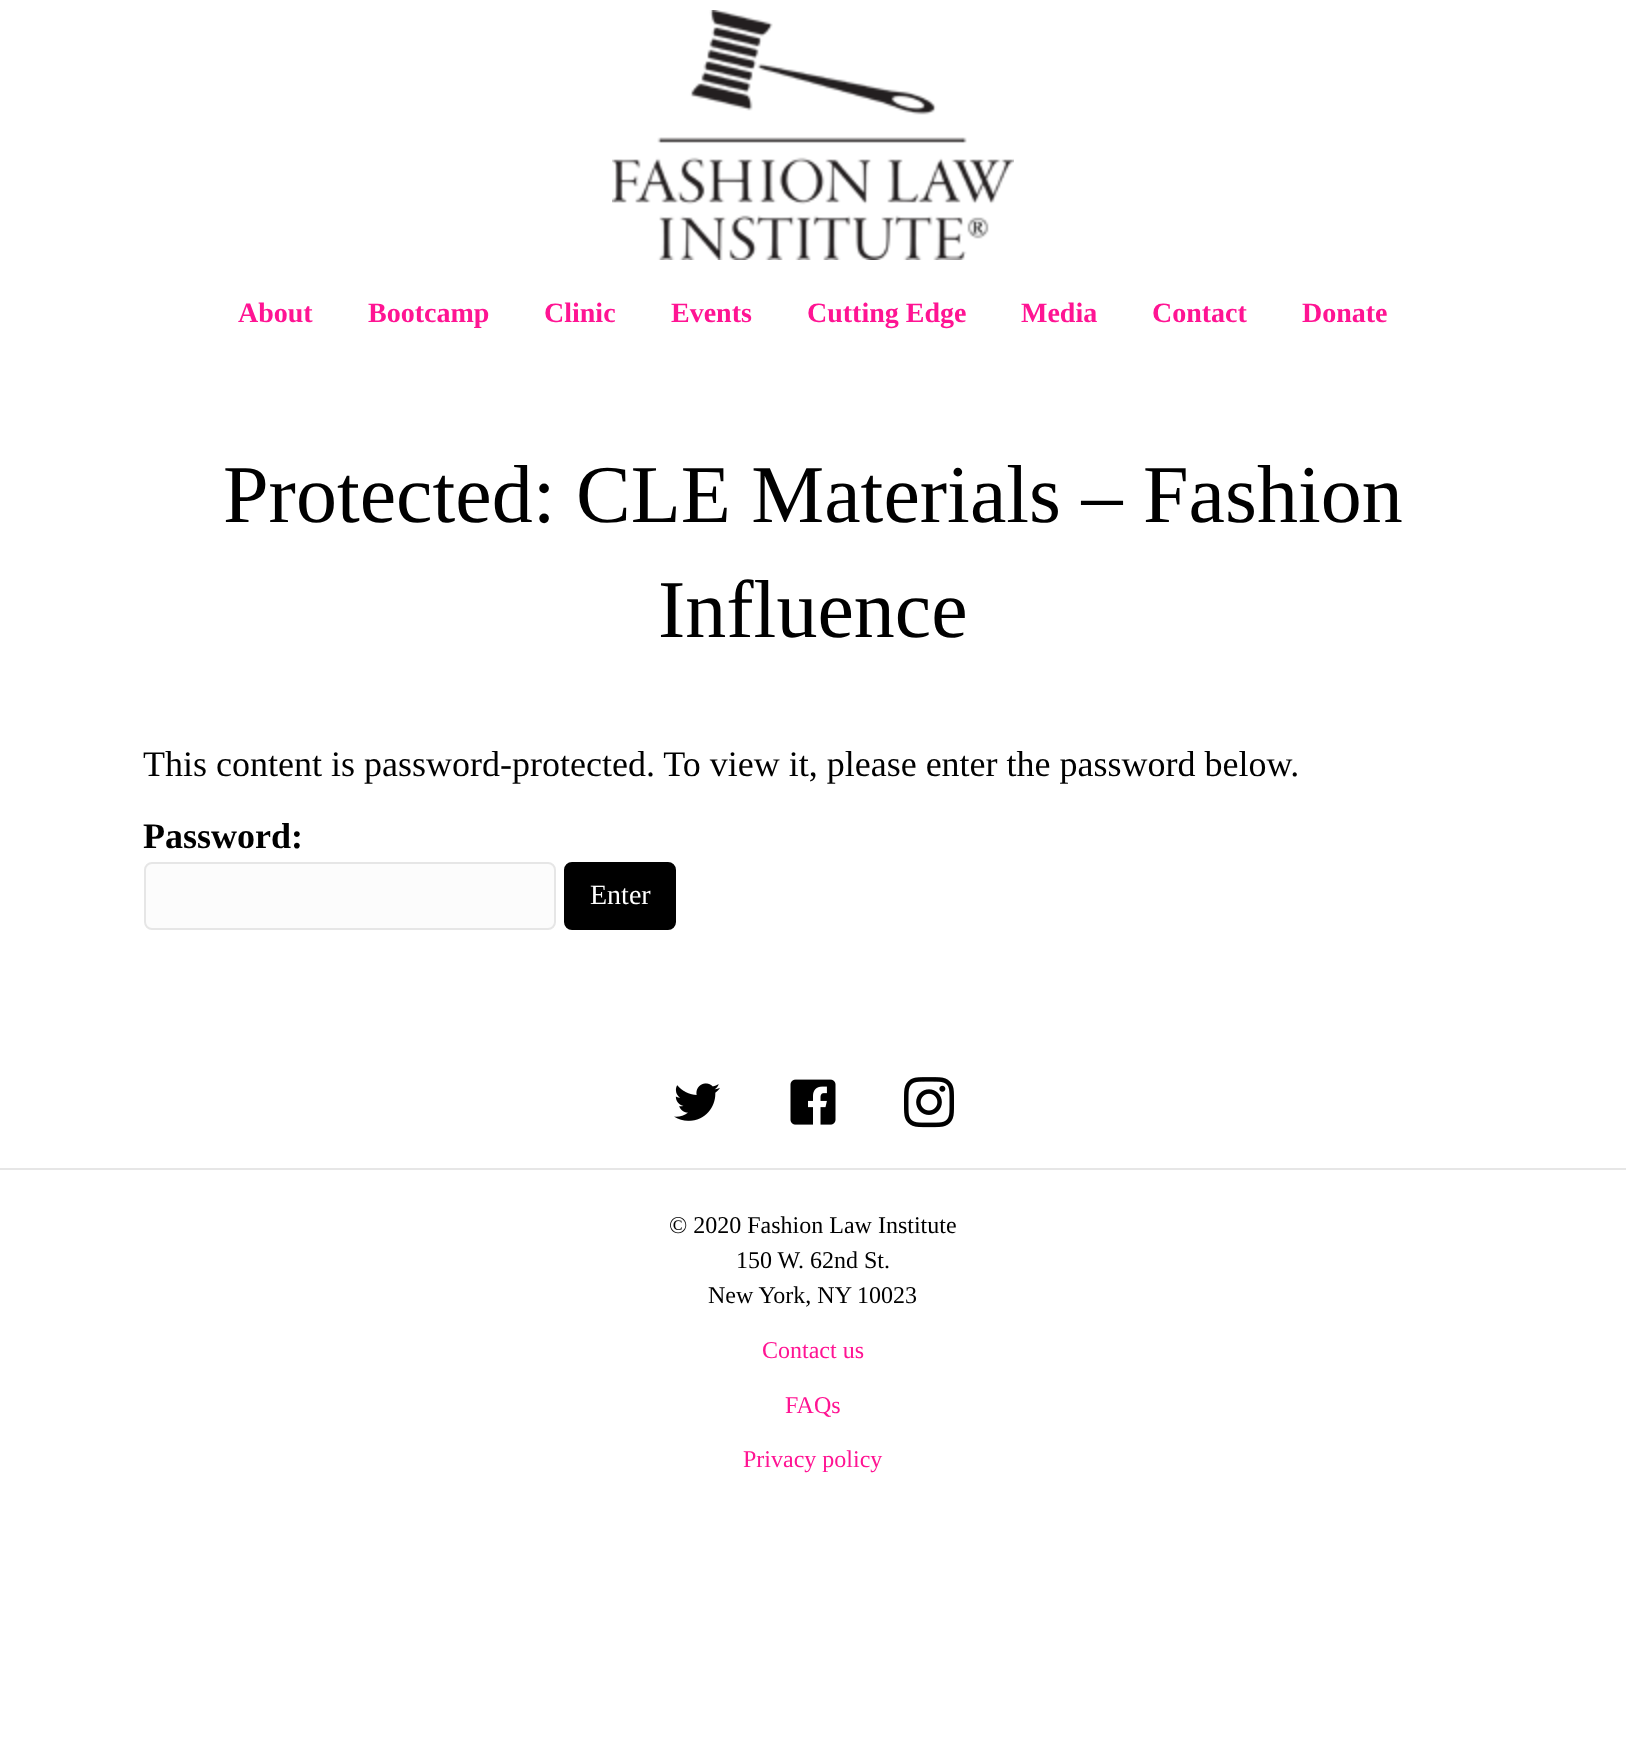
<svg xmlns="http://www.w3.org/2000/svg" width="1626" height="1749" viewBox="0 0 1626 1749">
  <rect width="100%" height="100%" fill="#fff"/>
  <image x="612" y="10" width="402" height="250" href="img/1.png"/>
  <rect x="145" y="863" width="410" height="66" rx="7" fill="#fcfcfc" stroke="#e6e6e6" stroke-width="2"/>
  <rect x="565" y="863" width="110" height="66" rx="7" fill="#000" stroke="#000" stroke-width="2"/>
  <image x="674" y="1083" width="46" height="38" href="img/2.png"/>
  <image x="790" y="1079" width="46" height="46" href="img/3.png"/>
  <image x="904" y="1077" width="50" height="51" href="img/4.png"/>
  <path d="M0 1168h1626v2H0z" fill="#e6e6e6"/>
  <g font-family="Liberation Serif" font-size="28" font-weight="bold" fill="#ff1493">
    <text x="238" y="322">About</text>
    <text x="368" y="322">Bootcamp</text>
    <text x="544" y="322">Clinic</text>
    <text x="671" y="322">Events</text>
    <text x="807" y="322">Cutting Edge</text>
    <text x="1021" y="322">Media</text>
    <text x="1152" y="322">Contact</text>
    <text x="1302" y="322">Donate</text>
  </g>
  <g font-family="Liberation Serif" font-size="82" fill="#000">
    <text x="223" y="522">Protected: CLE Materials – Fashion</text>
    <text x="658" y="637">Influence</text>
  </g>
  <text x="143" y="776" font-family="Liberation Serif" font-size="36" fill="#000">This content is password-protected. To view it, please enter the password below.</text>
  <text x="143" y="848" font-family="Liberation Serif" font-size="36" font-weight="bold" fill="#000">Password:</text>
  <text x="590" y="904" font-family="Liberation Serif" font-size="28" fill="#fff">Enter</text>
  <g font-family="Liberation Serif" font-size="24" fill="#000">
    <text x="669" y="1233">© 2020 Fashion Law Institute</text>
    <text x="736" y="1268">150 W. 62nd St.</text>
    <text x="708" y="1303">New York, NY 10023</text>
  </g>
  <g font-family="Liberation Serif" font-size="24" fill="#ff1493">
    <text x="762" y="1358">Contact us</text>
    <text x="785" y="1413">FAQs</text>
    <text x="743" y="1467">Privacy policy</text>
  </g>
</svg>
